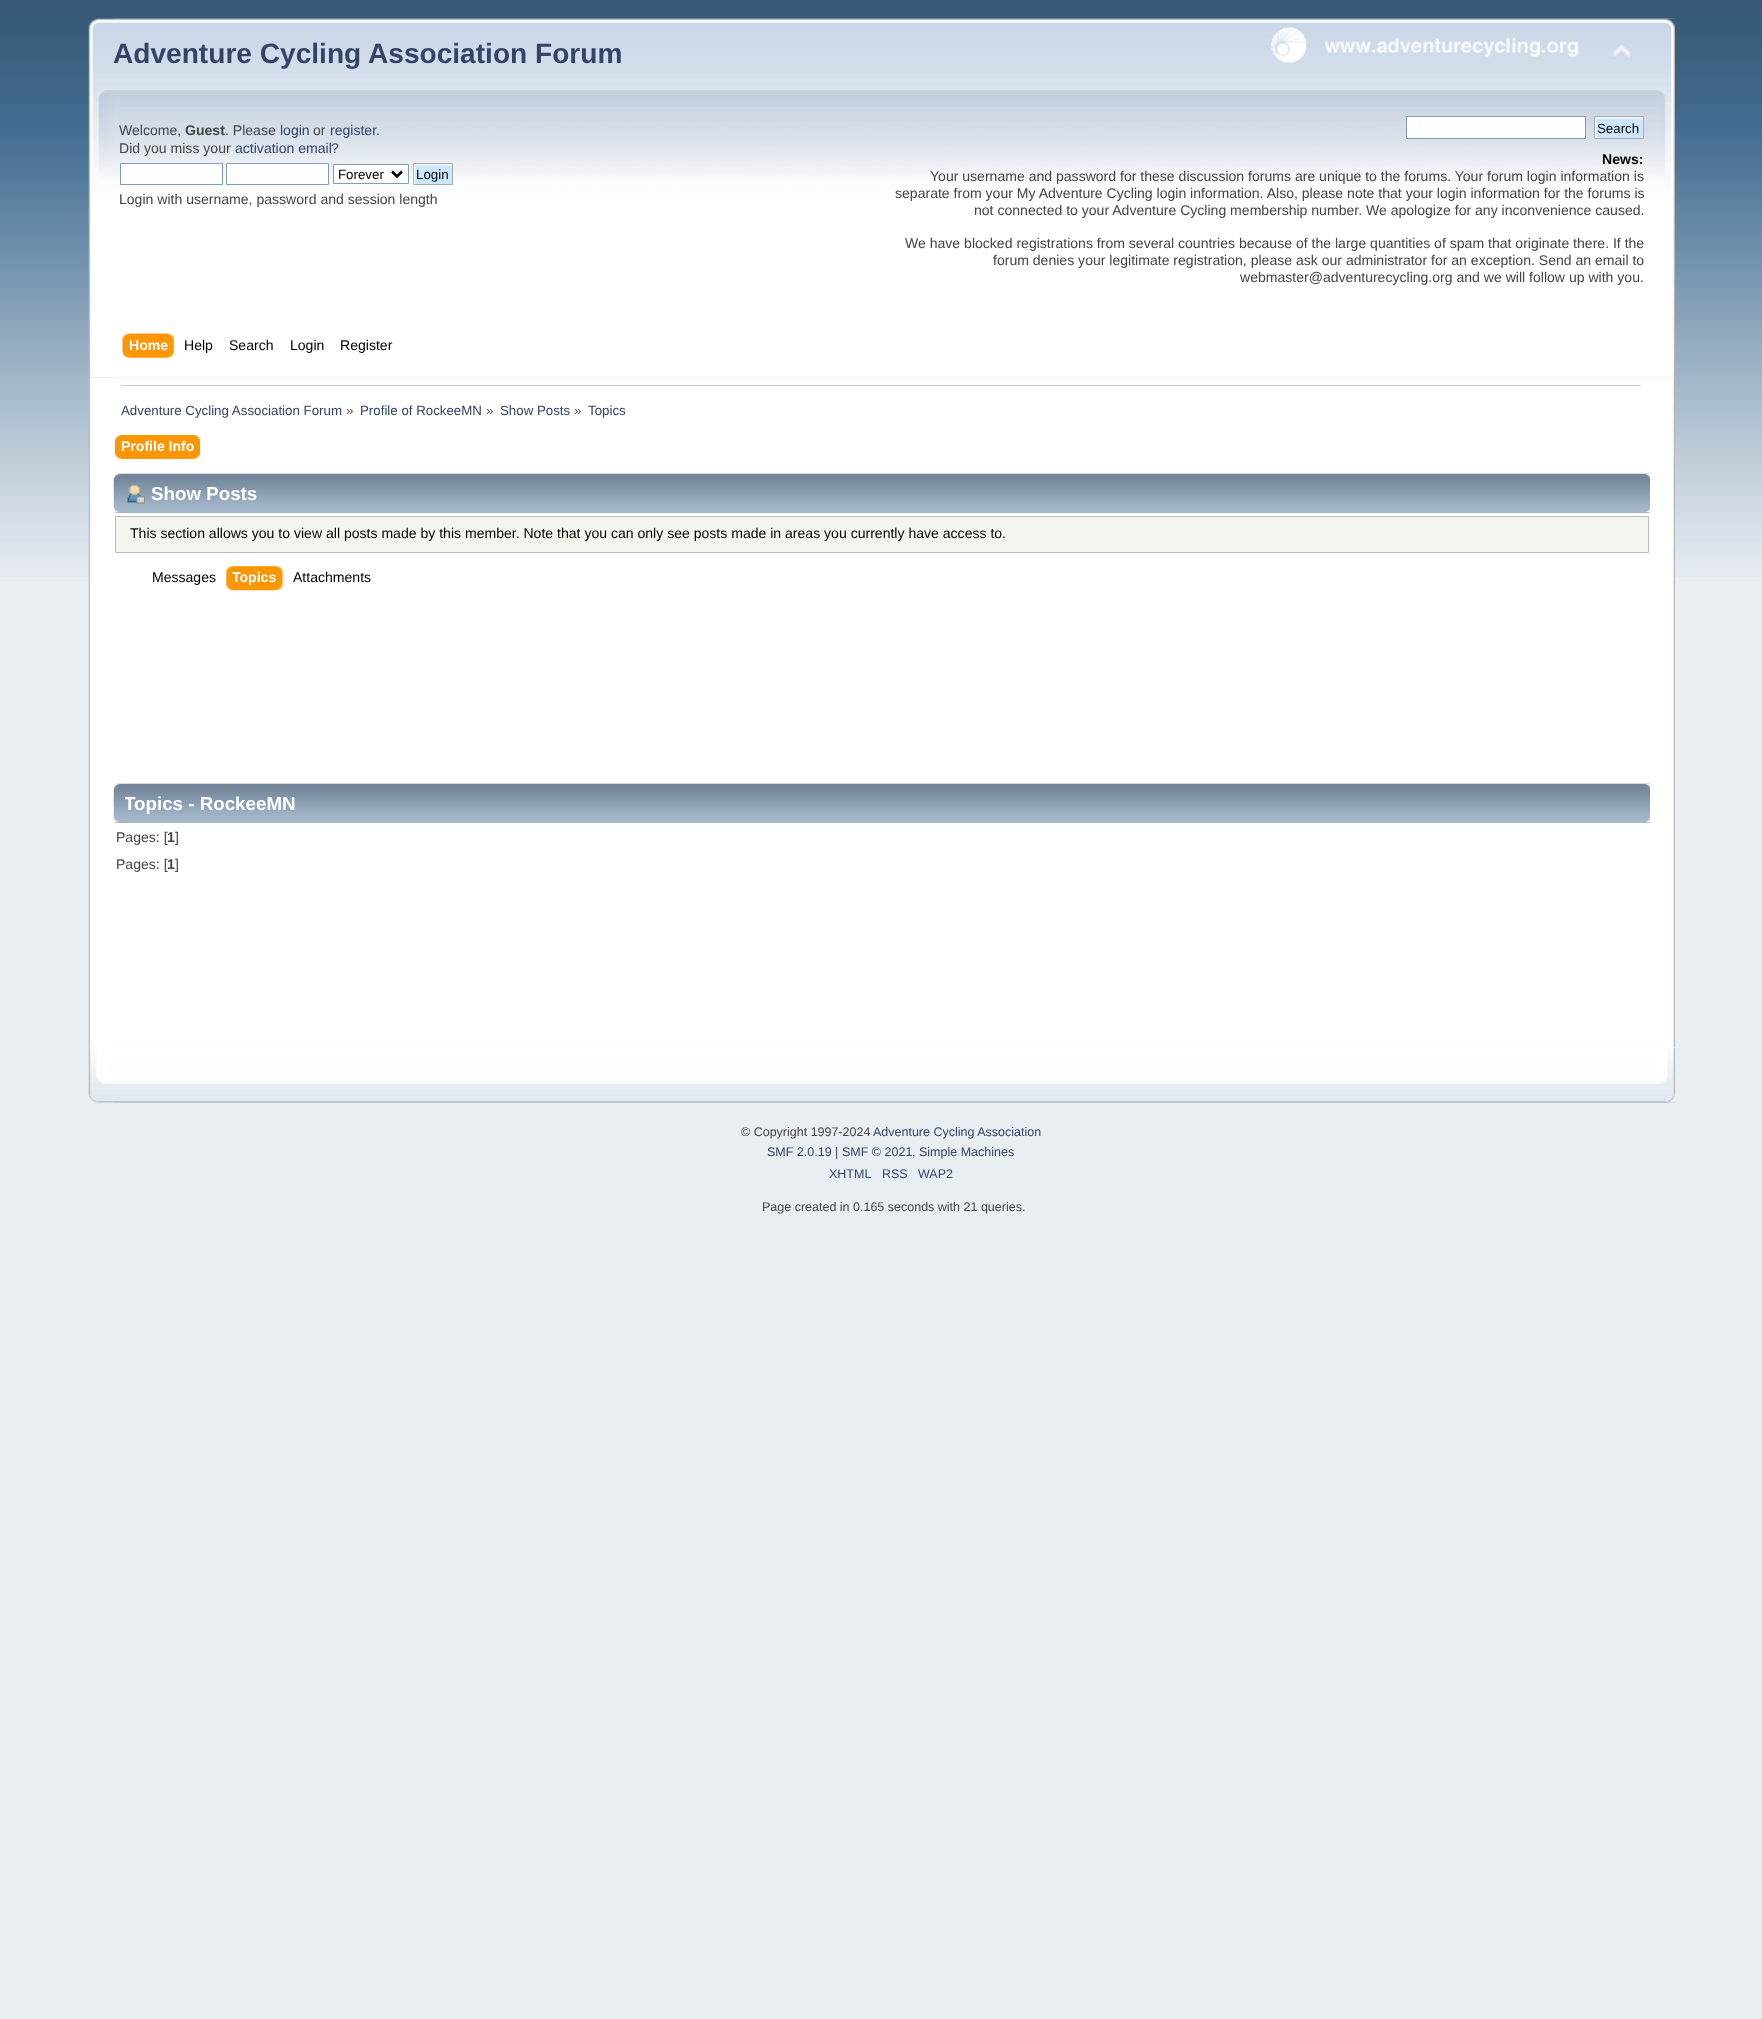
<svg xmlns="http://www.w3.org/2000/svg" width="1762" height="2019" viewBox="0 0 1762 2019">
  <defs>
    <clipPath id="clip1"><path d="M125 784h1525v39H125z"/></clipPath>
  </defs>
  <rect width="100%" height="100%" fill="#e9eef2"/>
  <image x="0" y="0" width="1762" height="577" href="img/1.png"/>
  <image x="88" y="18" width="1587" height="360" href="img/2.png"/>
  <image x="113" y="18" width="1562" height="360" href="img/3.png"/>
  <image x="1271" y="27" width="308" height="36" href="img/4.png"/>
  <image x="1612" y="44" width="19" height="15" href="img/5.png"/>
  <path d="M120.5 163.5h102v21H120.5z" fill="#fff" stroke="#7f9db9"/>
  <path d="M226.5 163.5h102v21H226.5z" fill="#fff" stroke="#7f9db9"/>
  <path d="M333.5 164.5h75v19H333.5z" fill="#fff" stroke="#7f9db9"/>
  <path d="M392 171.5L397 176.5L402 171.5" fill="none" stroke="#000" stroke-width="2.5"/>
  <image x="414" y="164" width="38" height="20" href="img/6.png"/>
  <path d="M413.5 163.5h39v21H413.5z" fill="none" stroke="#aaa"/>
  <path d="M1406.5 116.5h179v22H1406.5z" fill="#fff" stroke="#7f9db9"/>
  <path d="M1595 117h48v1H1595z" fill="#cde7ff"/>
  <image x="1595" y="117" width="48" height="21" href="img/7.png"/>
  <path d="M1594.5 116.5h49v22H1594.5z" fill="none" stroke="#aaa"/>
  <image x="128" y="333" width="46" height="25" href="img/8.png"/>
  <image x="122" y="333" width="46" height="25" href="img/9.png"/>
  <image x="88" y="377" width="1587" height="671" href="img/10.png"/>
  <image x="1673" y="377" width="2" height="671" href="img/11.png"/>
  <path d="M121 385h1520v1H121z" fill="#ccc"/>
  <image x="121" y="435" width="79" height="24" href="img/12.png"/>
  <image x="115" y="435" width="79" height="24" href="img/13.png"/>
  <path d="M114 512h1536v1H114z" fill="#99abbf"/>
  <image x="113" y="473" width="1537" height="40" href="img/14.png"/>
  <image x="125" y="473" width="1525" height="40" href="img/15.png"/>
  <image x="127" y="484" width="18" height="20" href="img/16.png"/>
  <path d="M115.5 516.5h1533v36H115.5z" fill="#f5f5f0" stroke="#bbb"/>
  <image x="232" y="566" width="51" height="25" href="img/17.png"/>
  <image x="226" y="566" width="51" height="25" href="img/18.png"/>
  <path d="M114 822h1536v1H114z" fill="#99abbf"/>
  <image x="113" y="783" width="1537" height="40" href="img/14.png"/>
  <image x="125" y="783" width="1525" height="40" href="img/15.png"/>
  <image x="88" y="1047" width="1587" height="56" href="img/19.png"/>
  <image x="114" y="1047" width="1561" height="56" href="img/20.png"/>
  <text x="113" y="63" font-family="Liberation Sans" font-size="28.1" font-weight="bold" fill="#346">Adventure Cycling Association Forum</text>
  <text x="119" y="135" font-family="Liberation Sans" font-size="14.05" fill="#444">Welcome,</text>
  <text x="185" y="135" font-family="Liberation Sans" font-size="14.05" font-weight="bold" fill="#444">Guest</text>
  <text x="225" y="135" font-family="Liberation Sans" font-size="14.05" fill="#444">. Please</text>
  <text x="280" y="135" font-family="Liberation Sans" font-size="14.05" fill="#346">login</text>
  <text x="313" y="135" font-family="Liberation Sans" font-size="14.05" fill="#444">or</text>
  <text x="330" y="135" font-family="Liberation Sans" font-size="14.05" fill="#346">register</text>
  <g font-family="Liberation Sans" font-size="14.05" fill="#444">
    <text x="376" y="135">.</text>
    <text x="119" y="153">Did you miss your</text>
  </g>
  <text x="235" y="153" font-family="Liberation Sans" font-size="14.05" fill="#346">activation email</text>
  <text x="331" y="153" font-family="Liberation Sans" font-size="14.05" fill="#444">?</text>
  <g font-family="Liberation Sans" font-size="13.3" fill="#000">
    <text x="338" y="179">Forever</text>
    <text x="416" y="179">Login</text>
  </g>
  <text x="119" y="204" font-family="Liberation Sans" font-size="14.05" fill="#444">Login with username, password and session length</text>
  <text x="1597" y="133" font-family="Liberation Sans" font-size="13.3" fill="#000">Search</text>
  <text x="1602" y="164" font-family="Liberation Sans" font-size="14.05" font-weight="bold" fill="#000">News:</text>
  <g font-family="Liberation Sans" font-size="14.05" fill="#444">
    <text x="930" y="181">Your username and password for these discussion forums are unique to the forums. Your forum login information is</text>
    <text x="895" y="198">separate from your My Adventure Cycling login information. Also, please note that your login information for the forums is</text>
    <text x="974" y="215">not connected to your Adventure Cycling membership number. We apologize for any inconvenience caused.</text>
    <text x="905" y="248">We have blocked registrations from several countries because of the large quantities of spam that originate there. If the</text>
    <text x="993" y="265">forum denies your legitimate registration, please ask our administrator for an exception. Send an email to</text>
    <text x="1240" y="282">webmaster@adventurecycling.org and we will follow up with you.</text>
  </g>
  <text x="129" y="350" font-family="Liberation Sans" font-size="14.05" font-weight="bold" fill="#fff">Home</text>
  <g font-family="Liberation Sans" font-size="14.05" fill="#000">
    <text x="184" y="350">Help</text>
    <text x="229" y="350">Search</text>
    <text x="290" y="350">Login</text>
    <text x="340" y="350">Register</text>
  </g>
  <text x="121" y="415" font-family="Liberation Sans" font-size="13.3" fill="#346">Adventure Cycling Association Forum</text>
  <text x="346" y="415" font-family="Liberation Sans" font-size="13.3" fill="#444">»</text>
  <text x="360" y="415" font-family="Liberation Sans" font-size="13.3" fill="#346">Profile of RockeeMN</text>
  <text x="486" y="415" font-family="Liberation Sans" font-size="13.3" fill="#444">»</text>
  <text x="500" y="415" font-family="Liberation Sans" font-size="13.3" fill="#346">Show Posts</text>
  <text x="574" y="415" font-family="Liberation Sans" font-size="13.3" fill="#444">»</text>
  <text x="588" y="415" font-family="Liberation Sans" font-size="13.3" fill="#346">Topics</text>
  <text x="121" y="451" font-family="Liberation Sans" font-size="14.05" font-weight="bold" fill="#fff">Profile Info</text>
  <text x="151" y="500" font-family="Liberation Sans" font-size="18.75" font-weight="bold" fill="#fff">Show Posts</text>
  <g font-family="Liberation Sans" font-size="14.05" fill="#000">
    <text x="130" y="538">This section allows you to view all posts made by this member. Note that you can only see posts made in areas you currently have access to.</text>
    <text x="152" y="582">Messages</text>
  </g>
  <text x="232" y="582" font-family="Liberation Sans" font-size="14.05" font-weight="bold" fill="#fff">Topics</text>
  <text x="293" y="582" font-family="Liberation Sans" font-size="14.05" fill="#000">Attachments</text>
  <g clip-path="url(#clip1)">
    <text x="124" y="810" font-family="Liberation Sans" font-size="18.75" font-weight="bold" fill="#fff">Topics - RockeeMN</text>
  </g>
  <text x="116" y="842" font-family="Liberation Sans" font-size="14.05" fill="#444">Pages: [</text>
  <text x="167" y="842" font-family="Liberation Sans" font-size="14.05" font-weight="bold" fill="#444">1</text>
  <g font-family="Liberation Sans" font-size="14.05" fill="#444">
    <text x="175" y="842">]</text>
    <text x="116" y="869">Pages: [</text>
  </g>
  <text x="167" y="869" font-family="Liberation Sans" font-size="14.05" font-weight="bold" fill="#444">1</text>
  <text x="175" y="869" font-family="Liberation Sans" font-size="14.05" fill="#444">]</text>
  <text x="741" y="1136" font-family="Liberation Sans" font-size="12.5" fill="#444">© Copyright 1997-2024</text>
  <g font-family="Liberation Sans" font-size="12.5" fill="#346">
    <text x="873" y="1136">Adventure Cycling Association</text>
    <text x="767" y="1156">SMF 2.0.19</text>
  </g>
  <text x="835" y="1156" font-family="Liberation Sans" font-size="12.5" fill="#444">|</text>
  <text x="842" y="1156" font-family="Liberation Sans" font-size="12.5" fill="#346">SMF © 2021</text>
  <text x="912" y="1156" font-family="Liberation Sans" font-size="12.5" fill="#444">,</text>
  <g font-family="Liberation Sans" font-size="12.5" fill="#346">
    <text x="919" y="1156">Simple Machines</text>
    <text x="829" y="1178">XHTML</text>
    <text x="882" y="1178">RSS</text>
    <text x="918" y="1178">WAP2</text>
  </g>
  <text x="762" y="1211" font-family="Liberation Sans" font-size="12.5" fill="#444">Page created in 0.165 seconds with 21 queries.</text>
</svg>
